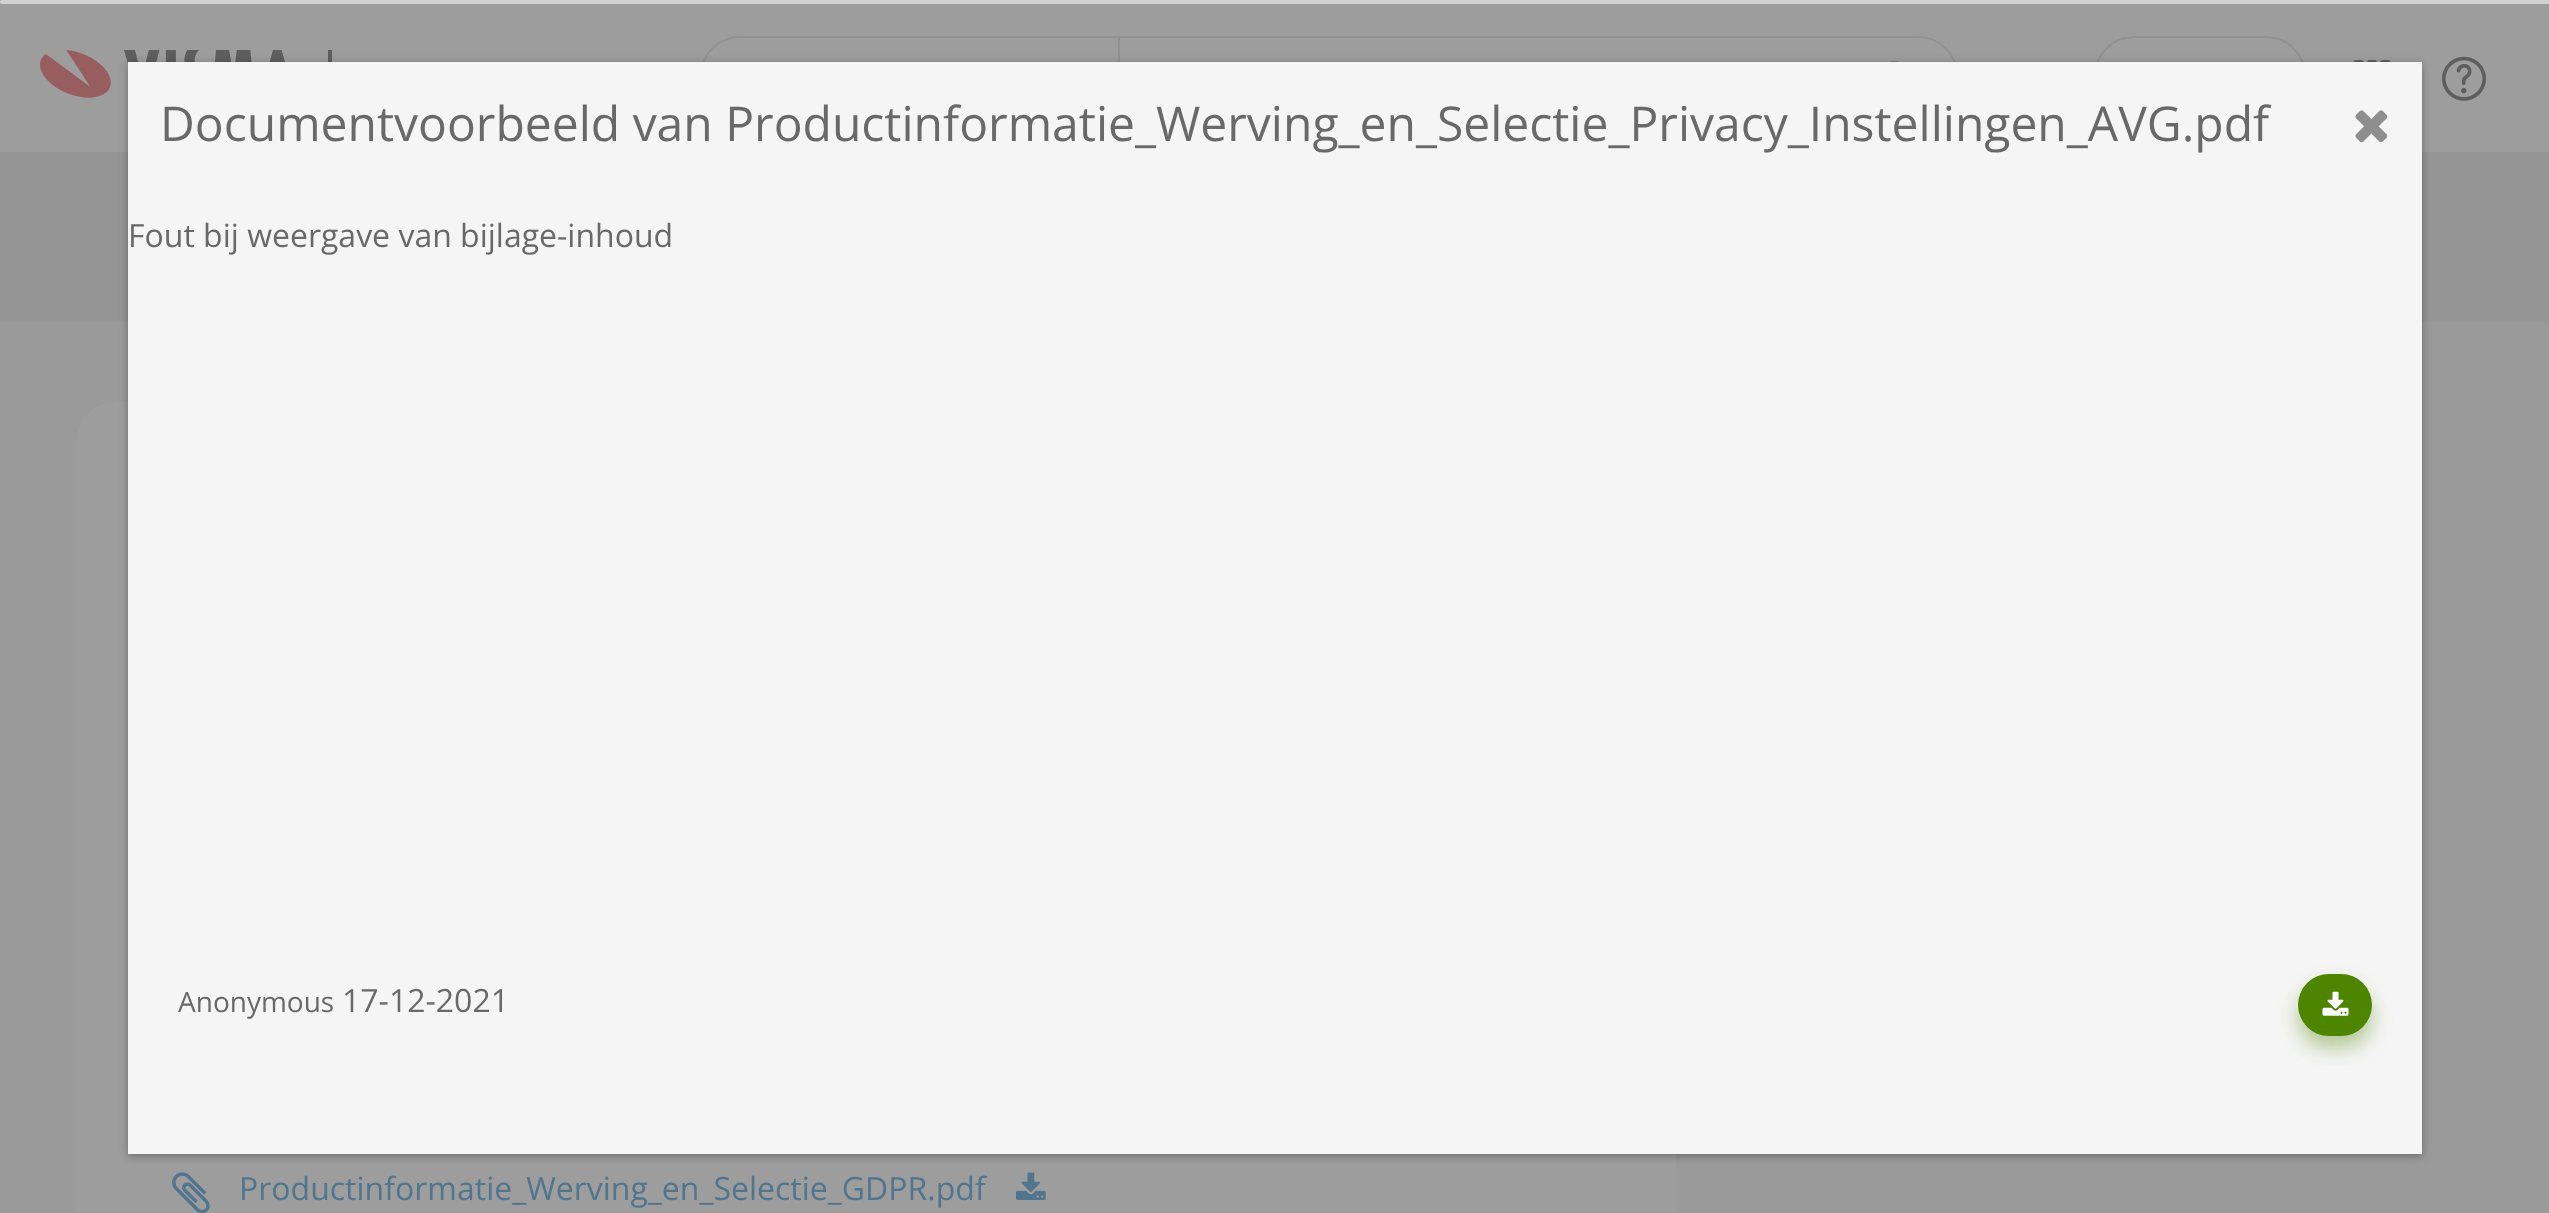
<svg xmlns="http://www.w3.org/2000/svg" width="2549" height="1213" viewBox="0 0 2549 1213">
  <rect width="100%" height="100%" fill="#9a9a9a"/>
  <path d="M0 0h2549v152H0z" fill="#9d9d9d"/>
  <rect width="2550" height="4" rx="2" fill="#d1d1d1"/>
  <image x="40" y="50" width="245" height="48" href="img/3.png"/>
  <path d="M328 50h4v12H328z" fill="#5e5e5e"/>
  <path d="M740 36H1118V116H740C718 116 700 98 700 76C700 54 718 36 740 36ZM740 38H1118V114H740C719 114 702 97 702 76C702 55 719 38 740 38Z" fill="#919191" fill-rule="evenodd"/>
  <path d="M1119 37H1918C1939.5 37 1957 54.5 1957 76C1957 97.5 1939.5 115 1918 115H1119Z" fill="none" stroke="#919191" stroke-width="2"/>
  <path d="M1836 38H1918C1939 38 1956 55 1956 76C1956 97 1939 114 1918 114H1836Z" fill="#9d9d9d"/>
  <circle cx="1894" cy="74" r="11.5" fill="none" stroke="#818181" stroke-width="3.6"/>
  <rect x="2095" y="37" width="210" height="78" rx="39" fill="none" stroke="#919191" stroke-width="2"/>
  <image x="2353" y="60" width="38" height="2" href="img/4.png"/>
  <path d="M0 152h2549v170H0z" fill="#959595"/>
  <rect x="76" y="402" width="1600" height="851" rx="40" fill="#9d9d9d"/>
  <path d="M128 64h2294v1092H128z" fill="#0000004d" filter="blur(4px)"/>
  <path d="M128 62h2294v1092H128z" fill="#f5f5f5"/>
  <image x="2355" y="110" width="33" height="33" href="img/1.png"/>
  <rect x="2298" y="986" width="74" height="62" rx="31" fill="#4d840066" filter="blur(10px)"/>
  <rect x="2298" y="974" width="74" height="62" rx="31" fill="#4d8400"/>
  <image x="2322" y="991" width="27" height="25" href="img/2.png"/>
  <image x="2442" y="56" width="44" height="45" href="img/5.png"/>
  <image x="172" y="1172" width="38" height="41" href="img/6.png"/>
  <image x="1016" y="1172" width="30" height="28" href="img/7.png"/>
  <text x="160" y="141" font-family="Open Sans" font-size="48" fill="#696969">Documentvoorbeeld van Productinformatie_Werving_en_Selectie_Privacy_Instellingen_AVG.pdf</text>
  <text x="128" y="247" font-family="Open Sans" font-size="32" fill="#696969">Fout bij weergave van bijlage-inhoud</text>
  <text x="178" y="1012" font-family="Open Sans" font-size="28" fill="#696969">Anonymous</text>
  <text x="342" y="1012" font-family="Open Sans" font-size="32" fill="#696969">17-12-2021</text>
  <text x="239" y="1200" font-family="Open Sans" font-size="32" fill="#51758d">Productinformatie_Werving_en_Selectie_GDPR.pdf</text>
</svg>
